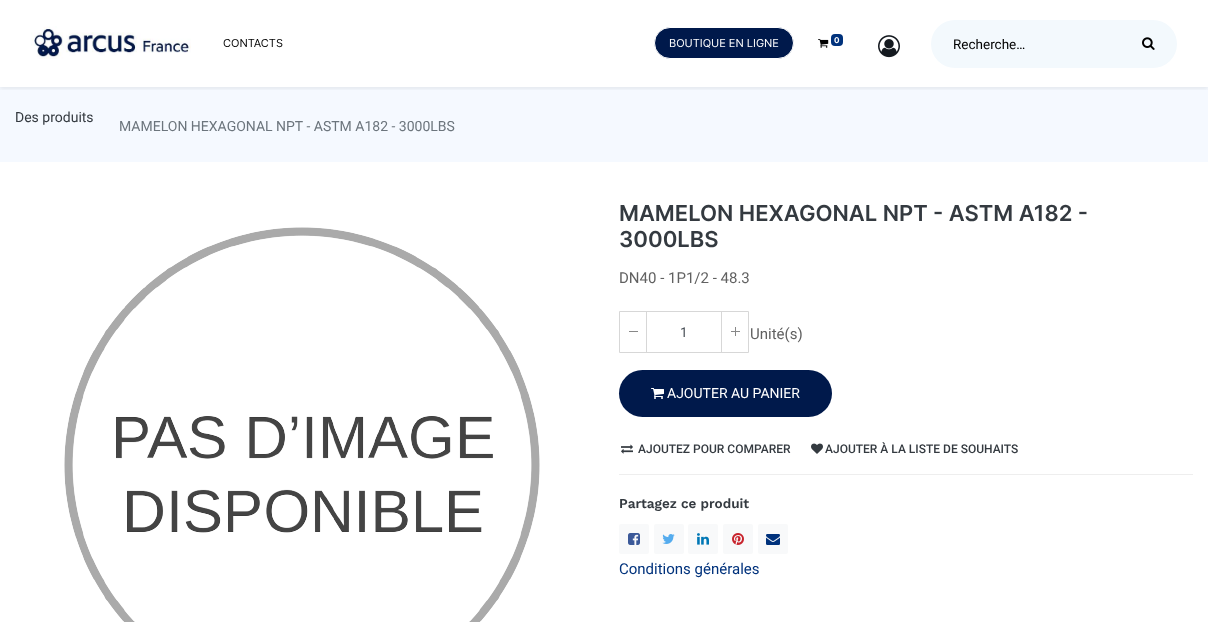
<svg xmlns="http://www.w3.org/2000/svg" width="1208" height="622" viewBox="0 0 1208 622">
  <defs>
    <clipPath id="clip1"><path d="M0 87h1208v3H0z"/></clipPath>
  </defs>
  <rect width="100%" height="100%" fill="#fff"/>
  <path d="M0 87h1208v75H0z" fill="#f5f9ff"/>
  <g clip-path="url(#clip1)">
    <path d="M0 2h1208v87H0z" fill="#00000012" filter="blur(2px)"/>
  </g>
  <image x="31" y="26" width="160" height="33" href="img/1.png"/>
  <rect x="654.5" y="27.5" width="139" height="31" rx="15.5" fill="#00194b" stroke="#fff"/>
  <image x="818" y="39" width="11" height="9" href="img/2.png"/>
  <rect x="831" y="34" width="12" height="12" rx="4" fill="#00327c"/>
  <image x="878" y="35" width="22" height="23" href="img/3.png"/>
  <rect x="931" y="20" width="246" height="48" rx="24" fill="#f3f9fd"/>
  <image x="1142" y="37" width="13" height="13" href="img/4.png"/>
  <image x="64" y="227" width="476" height="395" href="img/5.png"/>
  <path d="M619.5 311.5h129v41H619.5z" fill="none" stroke="#d7d7d7"/>
  <path d="M646 312h1v40H646z" fill="#d7d7d7"/>
  <path d="M629 331h9v1H629z" fill="#888"/>
  <path d="M721 312h1v40H721z" fill="#d7d7d7"/>
  <path d="M731 331h9v1H731z" fill="#888"/>
  <path d="M735 327h1v9H735z" fill="#888"/>
  <rect x="619" y="370" width="213" height="47" rx="23.5" fill="#00194b"/>
  <image x="651" y="388" width="13" height="11" href="img/6.png"/>
  <path d="M619 474h574v1H619z" fill="#eee"/>
  <image x="621" y="444" width="12" height="10" href="img/7.png"/>
  <image x="811" y="443" width="12" height="11" href="img/8.png"/>
  <rect x="619" y="524" width="30" height="30" rx="2" fill="#f8f9fa"/>
  <image x="628" y="533" width="12" height="12" href="img/9.png"/>
  <rect x="654" y="524" width="30" height="30" rx="2" fill="#f8f9fa"/>
  <image x="662" y="534" width="13" height="10" href="img/10.png"/>
  <rect x="688" y="524" width="30" height="30" rx="2" fill="#f8f9fa"/>
  <image x="697" y="533" width="12" height="12" href="img/11.png"/>
  <rect x="723" y="524" width="30" height="30" rx="2" fill="#f8f9fa"/>
  <image x="732" y="533" width="12" height="12" href="img/12.png"/>
  <rect x="758" y="524" width="30" height="30" rx="2" fill="#f8f9fa"/>
  <image x="766" y="534" width="14" height="11" href="img/13.png"/>
  <text x="223" y="47" font-family="Inter" font-size="11" fill="#000">CONTACTS</text>
  <text x="669" y="47" font-family="Inter" font-size="11" fill="#fff">BOUTIQUE EN LIGNE</text>
  <text x="834" y="43" font-family="Inter" font-size="8" font-weight="bold" fill="#fff">0</text>
  <text x="953" y="49" font-family="Roboto" font-size="13.5" fill="#000">Recherche…</text>
  <text x="15" y="122" font-family="Roboto" font-size="14" fill="#343a40">Des produits</text>
  <text x="119" y="131" font-family="Roboto" font-size="14" fill="#6c757d">MAMELON HEXAGONAL NPT - ASTM A182 - 3000LBS</text>
  <g font-family="Inter" font-size="22" font-weight="600" fill="#343a40">
    <text x="619" y="221">MAMELON HEXAGONAL NPT - ASTM A182 -</text>
    <text x="619" y="247">3000LBS</text>
  </g>
  <text x="619" y="283" font-family="Roboto" font-size="15" fill="#616161">DN40 - 1P1/2 - 48.3</text>
  <text x="680" y="337" font-family="Roboto" font-size="13.5" fill="#495057">1</text>
  <text x="750" y="339" font-family="Roboto" font-size="15" fill="#616161">Unité(s)</text>
  <text x="667" y="398" font-family="Roboto" font-size="14" fill="#fff">AJOUTER AU PANIER</text>
  <g font-family="Roboto" font-size="12" font-weight="500" fill="#343a40">
    <text x="638" y="453">AJOUTEZ POUR COMPARER</text>
    <text x="825" y="453">AJOUTER À LA LISTE DE SOUHAITS</text>
  </g>
  <text x="619" y="508" font-family="Work Sans" font-size="13.5" font-weight="600" fill="#343a40">Partagez ce produit</text>
  <text x="619" y="574" font-family="Roboto" font-size="15" fill="#00327c">Conditions générales</text>
</svg>
